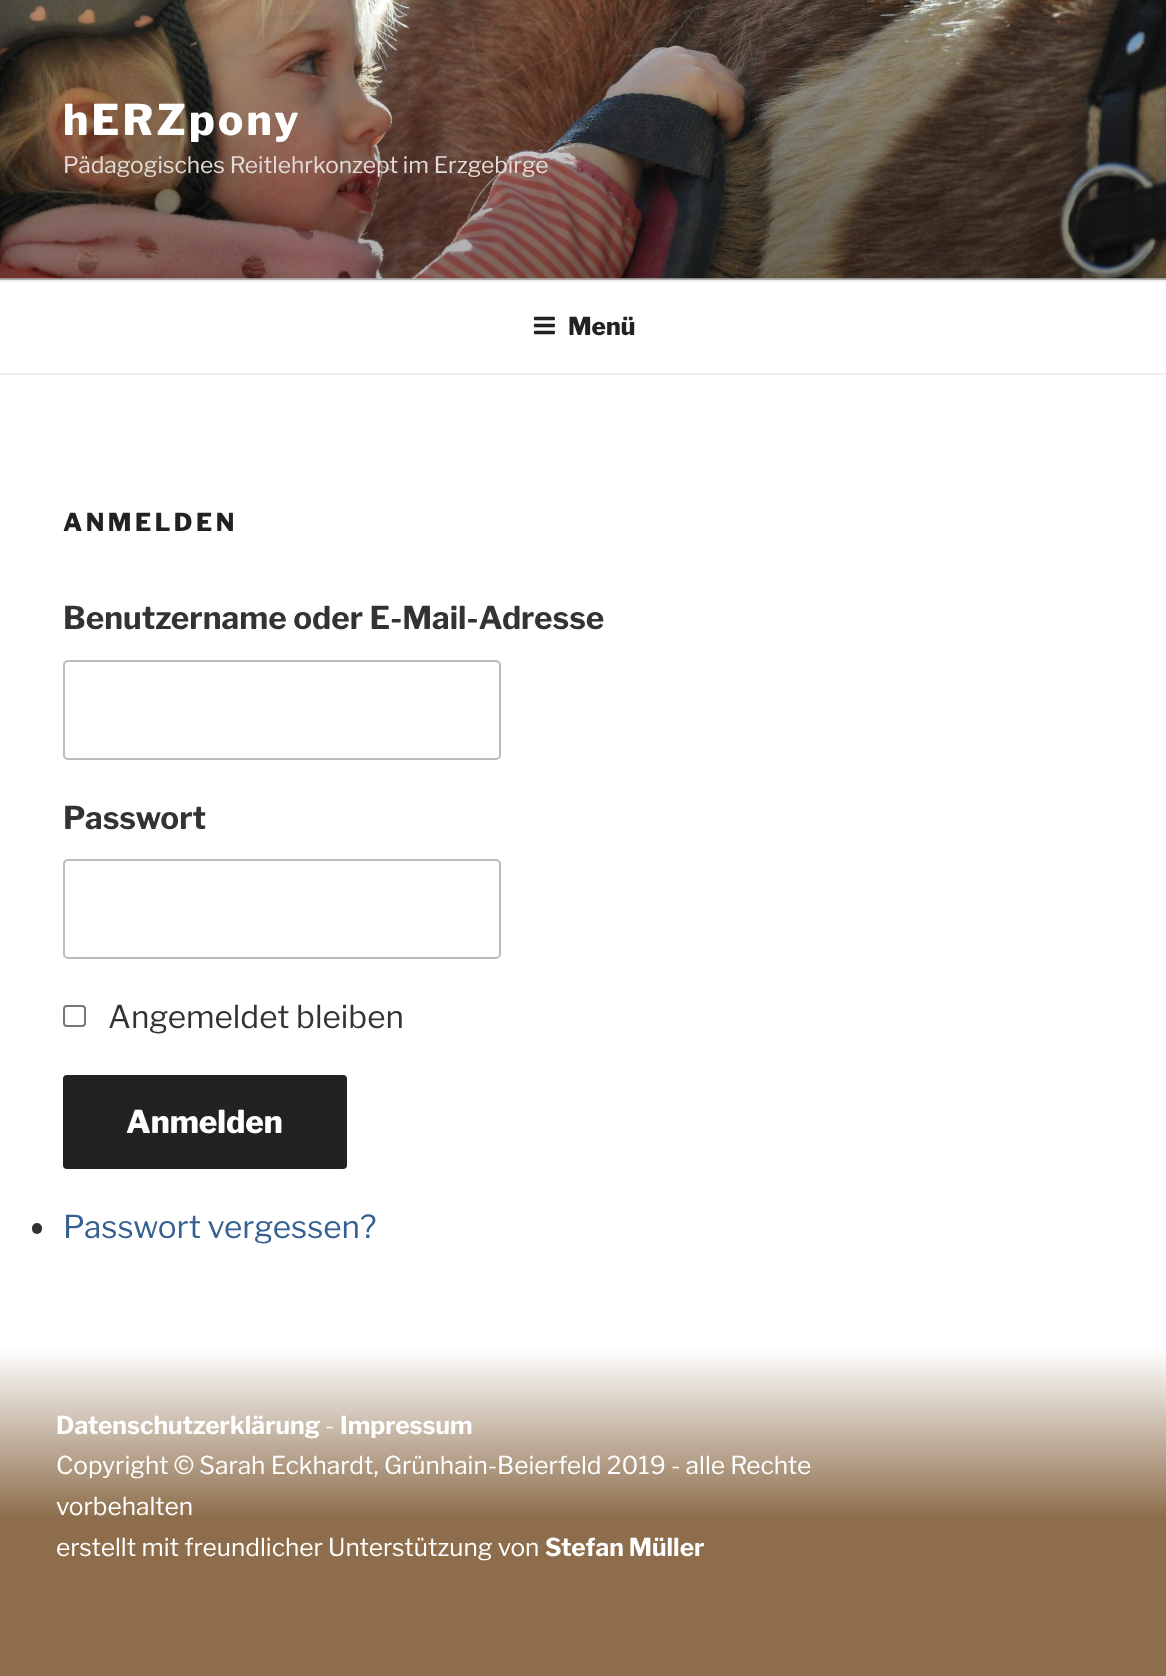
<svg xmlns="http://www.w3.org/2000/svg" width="1166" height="1676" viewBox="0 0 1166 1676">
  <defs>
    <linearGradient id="g1" gradientUnits="userSpaceOnUse" x1="584" y1="0" x2="584" y2="280"><stop offset="0" stop-color="#000" stop-opacity="0"/><stop offset="0.75" stop-color="#000" stop-opacity="0.3"/><stop offset="1" stop-color="#000" stop-opacity="0.3"/></linearGradient>
    <linearGradient id="g2" gradientUnits="userSpaceOnUse" x1="584" y1="1633" x2="584" y2="1348"><stop offset="0.4" stop-color="#8d6d4b"/><stop offset="1" stop-color="#fff"/></linearGradient>
  </defs>
  <rect width="100%" height="100%" fill="#8d6d4b"/>
  <path d="M0 375h1166v973H0z" fill="#fff"/>
  <path d="M0 278h1166v2H0z" fill="#fafafa"/>
  <image x="0" y="0" width="1166" height="279" href="img/1.png"/>
  <path d="M0 15h1166v265H0z" fill="url(#g1)"/>
  <path d="M0 282h1166v91H0z" fill="#fff"/>
  <path d="M0 280h1166v2H0z" fill="#eee"/>
  <path d="M0 373h1166v2H0z" fill="#eee"/>
  <image x="533" y="316" width="22" height="19" href="img/2.png"/>
  <rect x="64" y="661" width="436" height="98" rx="4" fill="none" stroke="#bbb" stroke-width="2"/>
  <rect x="64" y="860" width="436" height="98" rx="4" fill="none" stroke="#bbb" stroke-width="2"/>
  <rect x="64" y="1006" width="21" height="20" rx="3" fill="none" stroke="#767676" stroke-width="2"/>
  <rect x="63" y="1075" width="284" height="94" rx="4" fill="#222"/>
  <rect x="32" y="1223" width="10" height="11" rx="5" fill="#333"/>
  <path d="M0 1348h1166v169H0z" fill="url(#g2)"/>
  <text x="63" y="135" font-family="Libre Franklin" font-size="42" font-weight="800" letter-spacing="3.25" fill="#fff">hERZpony</text>
  <text x="63" y="173" font-family="Libre Franklin" font-size="22.75" fill="#e3dcd9">Pädagogisches Reitlehrkonzept im Erzgebirge</text>
  <text x="568" y="335" font-family="Libre Franklin" font-size="24.5" font-weight="800" fill="#222">Menü</text>
  <text x="63" y="531" font-family="Libre Franklin" font-size="24.5" font-weight="800" letter-spacing="3.5" fill="#222">ANMELDEN</text>
  <g font-family="Libre Franklin" font-size="31.5" font-weight="bold" fill="#333">
    <text x="63" y="629">Benutzername oder E-Mail-Adresse</text>
    <text x="63" y="829">Passwort</text>
  </g>
  <text x="108" y="1028" font-family="Libre Franklin" font-size="31.5" fill="#333">Angemeldet bleiben</text>
  <text x="126" y="1133" font-family="Libre Franklin" font-size="31.5" font-weight="800" fill="#fff">Anmelden</text>
  <text x="63" y="1238" font-family="Libre Franklin" font-size="31.5" fill="#366092">Passwort vergessen?</text>
  <text x="56" y="1434" font-family="Libre Franklin" font-size="24.5" font-weight="bold" fill="#fff">Datenschutzerklärung</text>
  <text x="325" y="1434" font-family="Libre Franklin" font-size="24.5" fill="#fff">-</text>
  <text x="340" y="1434" font-family="Libre Franklin" font-size="24.5" font-weight="bold" fill="#fff">Impressum</text>
  <g font-family="Libre Franklin" font-size="24.5" fill="#fff">
    <text x="56" y="1474">Copyright © Sarah Eckhardt, Grünhain-Beierfeld 2019 - alle Rechte</text>
    <text x="56" y="1515">vorbehalten</text>
    <text x="56" y="1556">erstellt mit freundlicher Unterstützung von</text>
  </g>
  <text x="545" y="1556" font-family="Libre Franklin" font-size="24.5" font-weight="bold" fill="#fff">Stefan Müller</text>
</svg>
